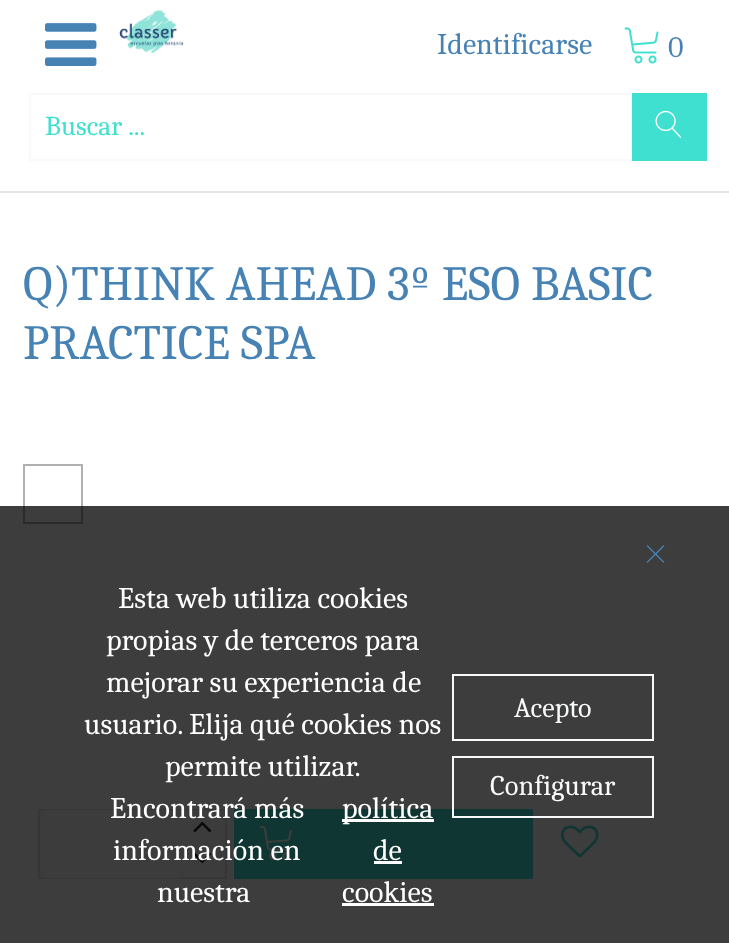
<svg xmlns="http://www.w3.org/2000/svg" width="729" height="943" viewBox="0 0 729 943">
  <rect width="100%" height="100%" fill="#fff"/>
  <image x="45" y="23" width="52" height="43" href="img/1.png"/>
  <image x="119" y="10" width="65" height="44" href="img/2.png"/>
  <image x="624" y="27" width="35" height="37" href="img/3.png"/>
  <path d="M30 94h602v66H30z" fill="none" stroke="#f8f9fa" stroke-width="2"/>
  <path d="M632 93h75v68H632z" fill="#40e0d0"/>
  <image x="655" y="110" width="27" height="28" href="img/4.png"/>
  <path d="M0 191h729v2H0z" fill="#e6e6e6"/>
  <path d="M24 465h58v58H24z" fill="none" stroke="#b0b0b0" stroke-width="2"/>
  <path d="M39 810h187v68H39z" fill="#f8f9fa" stroke="#dee2e6" stroke-width="2"/>
  <path d="M45 810h135v68H45z" fill="#f8f9fa"/>
  <path d="M180 810h45v1H180z" fill="#f8f9fa"/>
  <image x="193" y="821" width="19" height="12" href="img/5.png"/>
  <image x="193" y="852" width="19" height="12" href="img/6.png"/>
  <path d="M234 809h299v70H234z" fill="#40e0d0"/>
  <image x="259" y="826" width="33" height="34" href="img/7.png"/>
  <image x="561" y="825" width="38" height="33" href="img/8.png"/>
  <path d="M0 506h729v437H0z" fill="#000000c2"/>
  <image x="646" y="545" width="19" height="18" href="img/9.png"/>
  <path d="M342 819h92v3H342z" fill="#fff"/>
  <path d="M374 861h28v3H374z" fill="#fff"/>
  <path d="M342 903h92v3H342z" fill="#fff"/>
  <path d="M453 675h200v65H453z" fill="none" stroke="#f8f9fa" stroke-width="2"/>
  <path d="M453 757h200v60H453z" fill="none" stroke="#f8f9fa" stroke-width="2"/>
  <g font-family="Caladea" font-size="30" fill="#4682b4">
    <text x="437" y="54">Identificarse</text>
    <text x="668" y="57">0</text>
  </g>
  <text x="45" y="135" font-family="Caladea" font-size="27.5" fill="#40e0d0">Buscar ...</text>
  <g font-family="Caladea" font-size="49.25" fill="#4682b4">
    <text x="23" y="300">Q)THINK AHEAD 3º ESO BASIC</text>
    <text x="23" y="359">PRACTICE SPA</text>
  </g>
  <g font-family="Caladea" font-size="30" fill="#fff">
    <text x="118" y="608">Esta web utiliza cookies</text>
    <text x="106" y="650">propias y de terceros para</text>
    <text x="106" y="692">mejorar su experiencia de</text>
    <text x="84" y="734">usuario. Elija qué cookies nos</text>
    <text x="165" y="776">permite utilizar.</text>
    <text x="110" y="818">Encontrará más</text>
    <text x="342" y="818">política</text>
    <text x="373" y="860">de</text>
    <text x="342" y="902">cookies</text>
    <text x="113" y="860">información en</text>
    <text x="157" y="902">nuestra</text>
  </g>
  <text x="514" y="717" font-family="Caladea" font-size="28" fill="#f8f9fa">Acepto</text>
  <text x="490" y="795" font-family="Caladea" font-size="28.5" fill="#f8f9fa">Configurar</text>
</svg>
